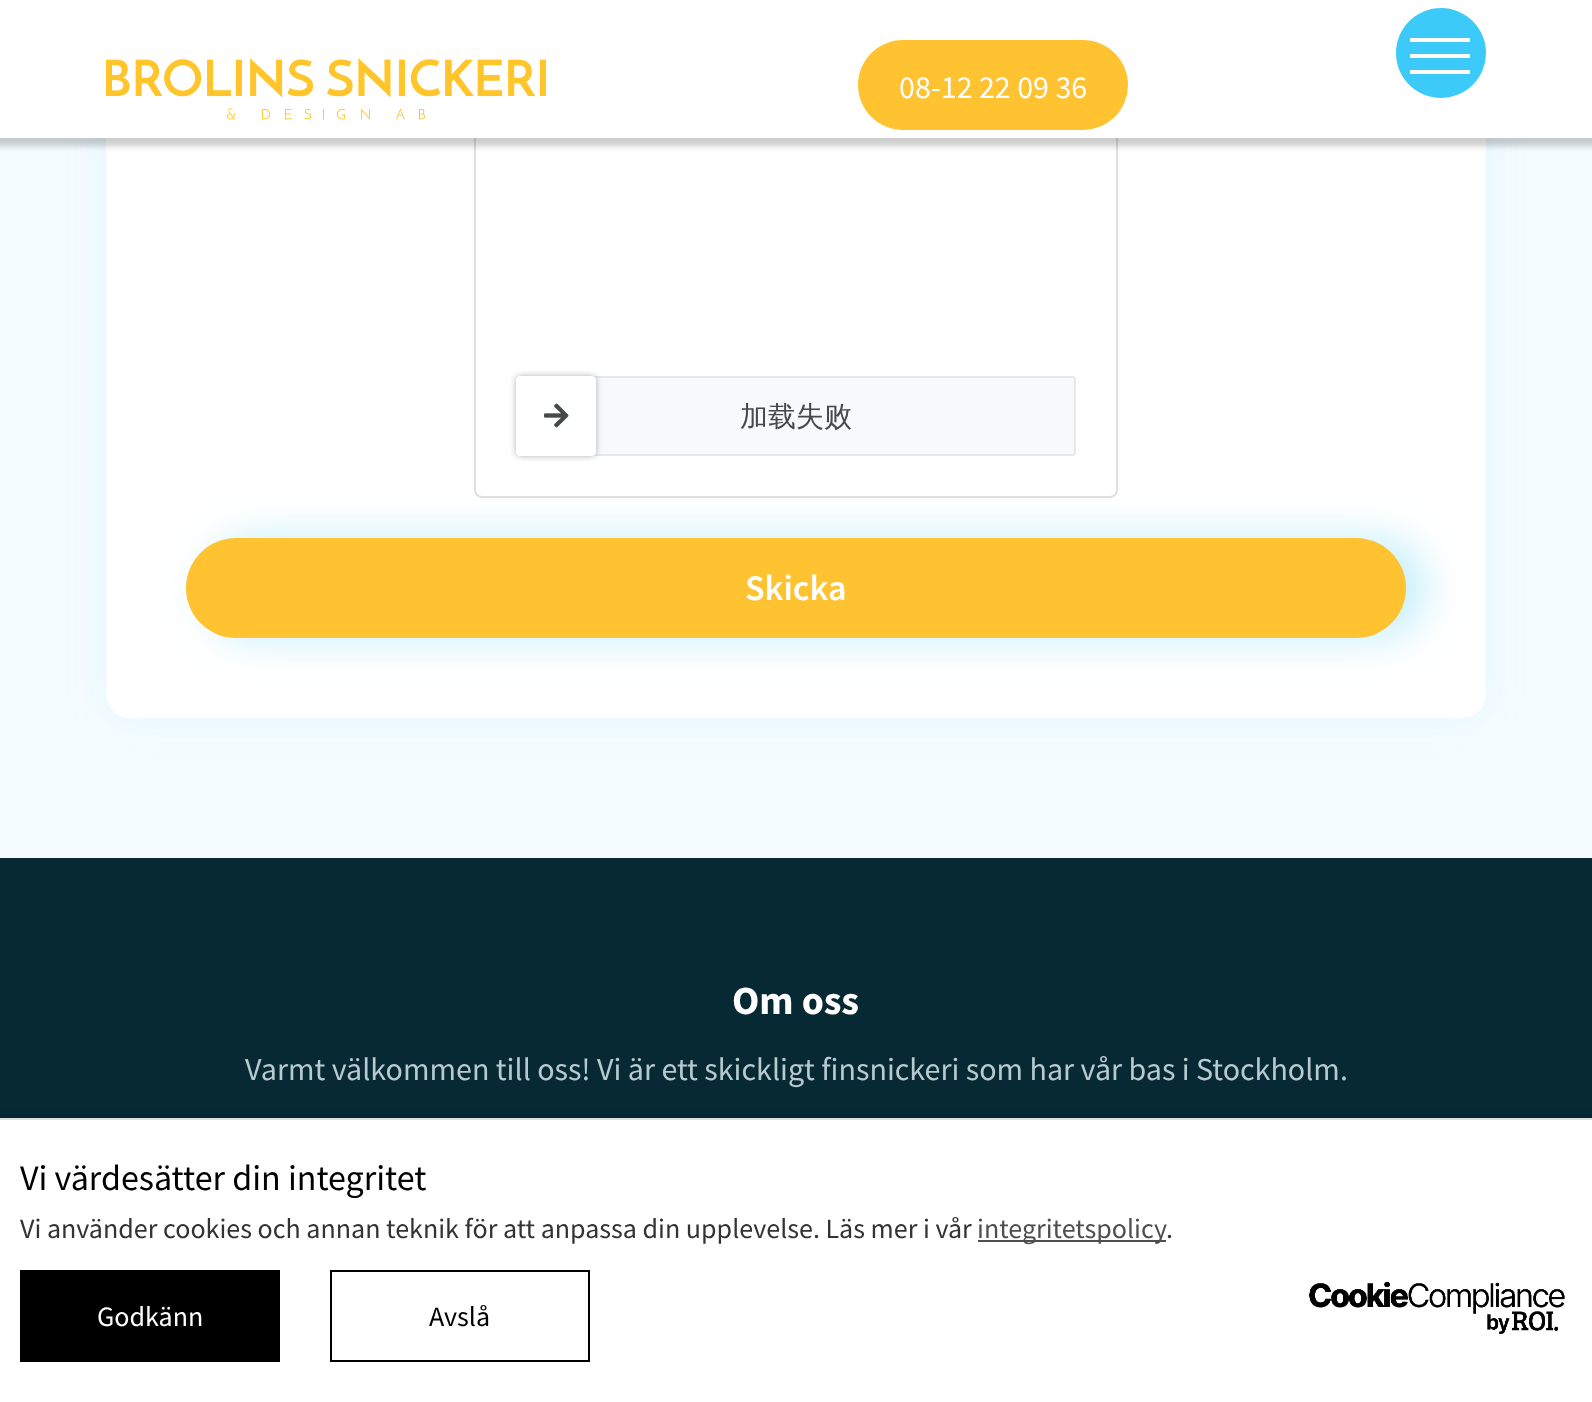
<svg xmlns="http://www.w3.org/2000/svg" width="1592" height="1402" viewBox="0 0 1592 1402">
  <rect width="100%" height="100%" fill="#f5fcff"/>
  <rect x="106" y="-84" width="1380" height="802" rx="24" fill="#3bc9f81a" filter="blur(20px)"/>
  <rect x="106" y="-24" width="1380" height="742" rx="24" fill="#fff"/>
  <rect x="206" y="538" width="1220" height="100" rx="50" fill="#3ccaf04d" filter="blur(20px)"/>
  <rect x="475" y="-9" width="642" height="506" rx="7" fill="none" stroke="#dfdfdf" stroke-width="2"/>
  <path d="M-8 -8h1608v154H-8z" fill="#00000033" filter="blur(3px)"/>
  <path d="M0 0h1592v138H0z" fill="#fff"/>
  <image x="106" y="58" width="440" height="62" href="img/1.png"/>
  <rect x="858" y="40" width="270" height="90" rx="45" fill="#ffc331"/>
  <circle cx="1441" cy="53" r="45" fill="#3ccaf8"/>
  <path d="M1410 38h60v4H1410z" fill="#fff"/>
  <path d="M1410 54h60v4H1410z" fill="#fff"/>
  <path d="M1410 70h60v4H1410z" fill="#fff"/>
  <rect x="517" y="377" width="558" height="78" rx="3" fill="#f7f9fa" stroke="#e6e8eb" stroke-width="2"/>
  <rect x="516" y="376" width="80" height="80" rx="4" fill="#0000004d" filter="blur(3px)"/>
  <rect x="516" y="376" width="80" height="80" rx="4" fill="#fff"/>
  <image x="544" y="403" width="25" height="25" href="img/2.png"/>
  <rect x="186" y="538" width="1220" height="100" rx="50" fill="#ffc331"/>
  <path d="M0 858h1592v260H0z" fill="#062934"/>
  <path d="M0 1114h1592v284H0z" fill="#0000001a" filter="blur(5px)"/>
  <path d="M0 1120h1592v282H0z" fill="#fff"/>
  <path d="M0 1118h1592v2H0z" fill="#dcdcdc"/>
  <path d="M978 1240h188v2H978z" fill="#4e4e4e"/>
  <path d="M20 1270h260v92H20z" fill="#000"/>
  <path d="M331 1271h258v90H331z" fill="none" stroke="#000" stroke-width="2"/>
  <image x="1309" y="1281" width="256" height="53" href="img/3.png"/>
  <text x="899" y="98" font-family="Source Sans Pro" font-size="32" fill="#fff">08-12 22 09 36</text>
  <text x="740" y="426" font-family="WenQuanYi Zen Hei" font-size="28" font-weight="500" fill="#45494c">加载失败</text>
  <text x="745" y="600" font-family="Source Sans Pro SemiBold" font-size="36" font-weight="600" fill="#fff">Skicka</text>
  <text x="732" y="1014" font-family="Source Sans Pro" font-size="40" font-weight="bold" fill="#fff">Om oss</text>
  <text x="245" y="1080" font-family="Source Sans Pro" font-size="32" fill="#b8cad0">Varmt välkommen till oss! Vi är ett skickligt finsnickeri som har vår bas i Stockholm.</text>
  <text x="20" y="1190" font-family="Source Sans Pro" font-size="36" fill="#000">Vi värdesätter din integritet</text>
  <text x="20" y="1238" font-family="Source Sans Pro" font-size="28" fill="#333">Vi använder cookies och annan teknik för att anpassa din upplevelse. Läs mer i vår</text>
  <text x="977" y="1238" font-family="Source Sans Pro" font-size="28" fill="#4e4e4e">integritetspolicy</text>
  <text x="1166" y="1238" font-family="Source Sans Pro" font-size="28" fill="#333">.</text>
  <text x="97" y="1326" font-family="Source Sans Pro" font-size="28" fill="#fff">Godkänn</text>
  <text x="429" y="1326" font-family="Source Sans Pro" font-size="28" fill="#000">Avslå</text>
</svg>
